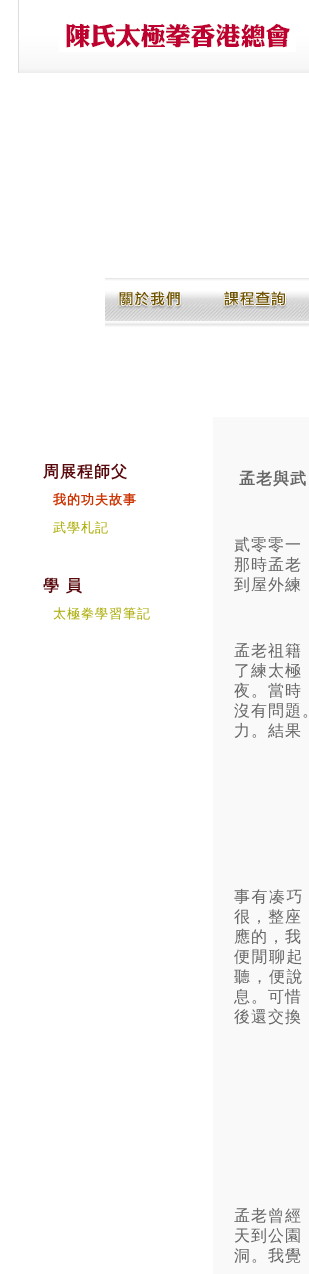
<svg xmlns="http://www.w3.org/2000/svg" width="309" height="1274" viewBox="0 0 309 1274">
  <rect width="100%" height="100%" fill="#fff"/>
  <image x="18" y="0" width="291" height="73" href="img/1.png"/>
  <image x="105" y="278" width="98" height="49" href="img/2.png"/>
  <image x="203" y="278" width="98" height="49" href="img/3.png"/>
  <image x="301" y="278" width="8" height="49" href="img/4.png"/>
  <path d="M213 417h96v857H213z" fill="#f9f9f9"/>
  <text x="43" y="477" font-family="WenQuanYi Zen Hei" font-size="16" font-weight="bold" letter-spacing="1" fill="#58070a">周展程師父</text>
  <text x="53" y="504" font-family="WenQuanYi Zen Hei" font-size="13" font-weight="bold" letter-spacing="1" fill="#c30">我的功夫故事</text>
  <text x="53" y="532" font-family="WenQuanYi Zen Hei" font-size="13" font-weight="500" letter-spacing="1" fill="#aa0">武學札記</text>
  <text x="43" y="591" font-family="WenQuanYi Zen Hei" font-size="16" font-weight="bold" letter-spacing="1" fill="#58070a">學 員</text>
  <text x="53" y="618" font-family="WenQuanYi Zen Hei" font-size="13" font-weight="500" letter-spacing="1" fill="#aa0">太極拳學習筆記</text>
  <text x="239" y="484" font-family="WenQuanYi Zen Hei" font-size="16" font-weight="bold" letter-spacing="1" fill="#666">孟老與武</text>
  <g font-family="WenQuanYi Zen Hei" font-size="16" font-weight="500" letter-spacing="1" fill="#666">
    <text x="234" y="550">貳零零一</text>
    <text x="234" y="570">那時孟老</text>
    <text x="234" y="590">到屋外練</text>
    <text x="234" y="656">孟老祖籍</text>
    <text x="234" y="676">了練太極</text>
    <text x="234" y="696">夜。當時</text>
    <text x="234" y="716">沒有問題。</text>
    <text x="234" y="736">力。結果</text>
  </g>
  <text x="234" y="902" font-family="WenQuanYi Zen Hei" font-size="16" font-weight="500" letter-spacing="1.5" fill="#666">事有凑巧</text>
  <g font-family="WenQuanYi Zen Hei" font-size="16" font-weight="500" letter-spacing="1" fill="#666">
    <text x="234" y="922">很，整座</text>
    <text x="234" y="942">應的，我</text>
  </g>
  <g font-family="WenQuanYi Zen Hei" font-size="16" font-weight="500" letter-spacing="1.5" fill="#666">
    <text x="234" y="962">便閒聊起</text>
    <text x="234" y="982">聽，便說</text>
  </g>
  <g font-family="WenQuanYi Zen Hei" font-size="16" font-weight="500" letter-spacing="1" fill="#666">
    <text x="234" y="1002">息。可惜</text>
    <text x="234" y="1022">後還交換</text>
    <text x="234" y="1221">孟老曾經</text>
    <text x="234" y="1241">天到公園</text>
    <text x="234" y="1261">洞。我覺</text>
  </g>
</svg>
